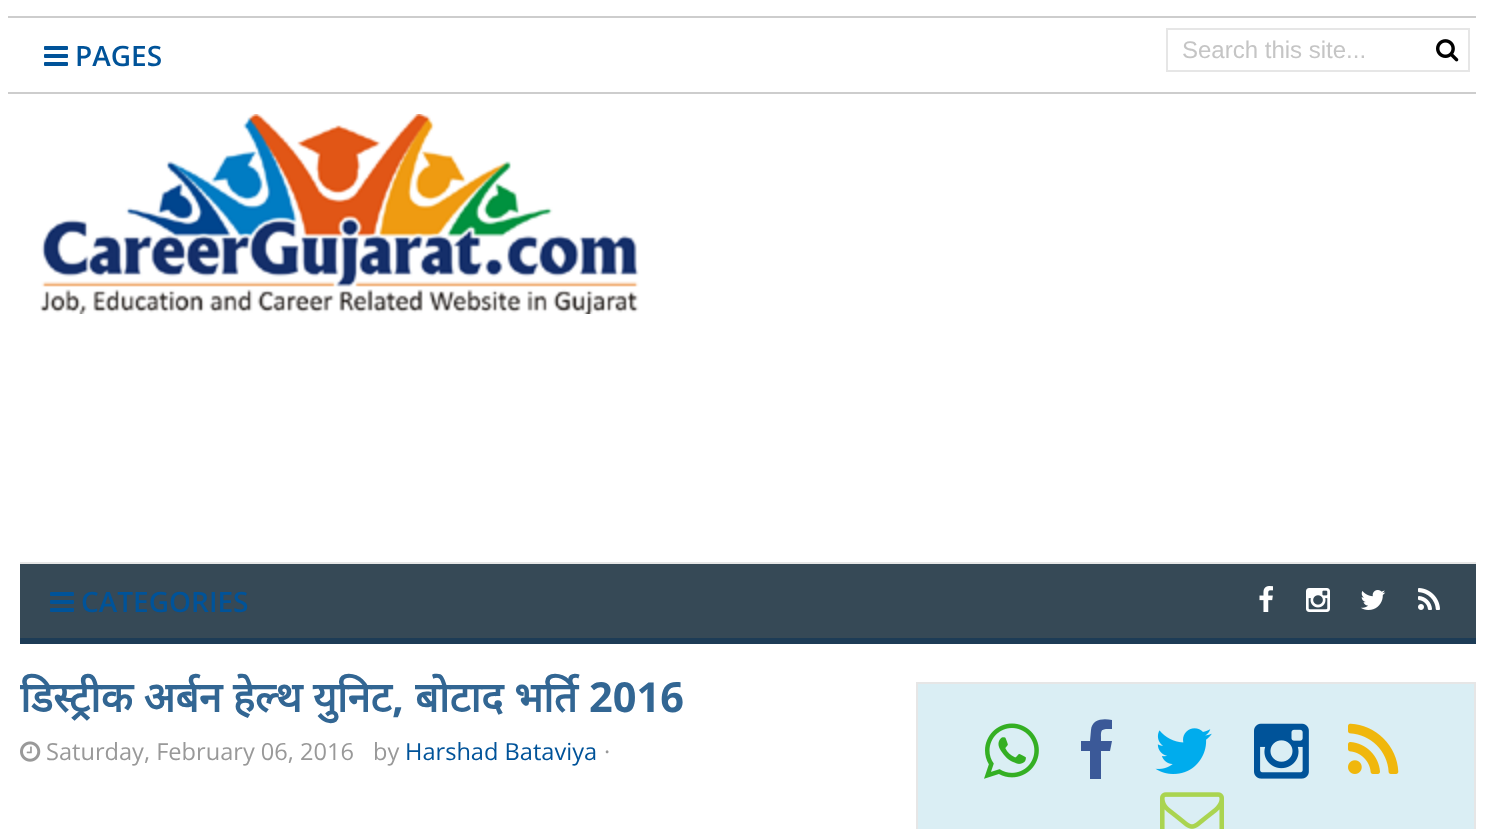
<svg xmlns="http://www.w3.org/2000/svg" width="1495" height="829" viewBox="0 0 1495 829">
  <defs>
    <clipPath id="clip1"><path d="M20 668h872v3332H20z"/></clipPath>
  </defs>
  <rect width="100%" height="100%" fill="#fff"/>
  <path d="M8 16h1468v2H8z" fill="#cdcdcd"/>
  <path d="M8 92h1468v2H8z" fill="#cdcdcd"/>
  <image x="44" y="46" width="24" height="20" href="img/1.png"/>
  <path d="M1167 29h302v42H1167z" fill="none" stroke="#e6e6e6" stroke-width="2"/>
  <image x="1436" y="39" width="23" height="23" href="img/2.png"/>
  <image x="40" y="114" width="599" height="200" href="img/3.png"/>
  <path d="M20 564h1456v74H20z" fill="#364956"/>
  <path d="M20 562h1456v2H20z" fill="#e6e6e6"/>
  <path d="M20 638h1456v6H20z" fill="#1d3c56"/>
  <image x="50" y="592" width="24" height="20" href="img/4.png"/>
  <image x="1259" y="586" width="14" height="26" href="img/5.png"/>
  <image x="1306" y="588" width="24" height="24" href="img/6.png"/>
  <image x="1360" y="590" width="26" height="20" href="img/7.png"/>
  <image x="1418" y="588" width="22" height="22" href="img/8.png"/>
  <image x="20" y="741" width="21" height="21" href="img/9.png"/>
  <path d="M918 684h556v145H918z" fill="#daeef4"/>
  <path d="M916 682h560v2H916z" fill="#e6e6e6"/>
  <path d="M1476 682V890L1474 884V684Z" fill="#e6e6e6"/>
  <path d="M916 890V682L918 684V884Z" fill="#e6e6e6"/>
  <image x="984" y="723" width="55" height="56" href="img/10.png"/>
  <path d="M1112 720V729C1100 729 1101 729 1101 741H1112L1110 751H1101V779H1090V751H1081V741H1090L1091 730C1092 719 1103 718 1112 720Z" fill="#3b5998"/>
  <image x="1155" y="728" width="57" height="46" href="img/11.png"/>
  <image x="1254" y="723" width="55" height="56" href="img/12.png"/>
  <image x="1348" y="723" width="51" height="51" href="img/13.png"/>
  <image x="1160" y="792" width="64" height="37" href="img/14.png"/>
  <text x="75" y="66" font-family="Open Sans" font-size="28" font-weight="600" fill="#005399">PAGES</text>
  <text x="1182" y="58" font-family="Liberation Sans" font-size="24" fill="#c5c5c5">Search this site...</text>
  <text x="81" y="612" font-family="Open Sans" font-size="28" font-weight="600" fill="#005399">CATEGORIES</text>
  <g clip-path="url(#clip1)">
    <text x="20" y="712" font-family="Noto Sans" font-size="41.5" font-weight="bold" fill="#326693">डिस्ट्रीक अर्बन हेल्थ युनिट</text>
  </g>
  <text x="392" y="712" font-family="Open Sans" font-size="41.5" font-weight="bold" fill="#326693">,</text>
  <text x="415" y="712" font-family="Noto Sans" font-size="41.5" font-weight="bold" fill="#326693">बोटाद भर्ति</text>
  <text x="589" y="712" font-family="Open Sans" font-size="41.5" font-weight="bold" fill="#326693">2016</text>
  <g font-family="Open Sans" font-size="23.6" fill="#999">
    <text x="46" y="760">Saturday, February 06, 2016</text>
    <text x="373" y="760">by</text>
  </g>
  <text x="405" y="760" font-family="Open Sans" font-size="23.6" fill="#005399">Harshad Bataviya</text>
  <text x="604" y="760" font-family="'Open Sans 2'" font-size="23.6" fill="#999">·</text>
</svg>
